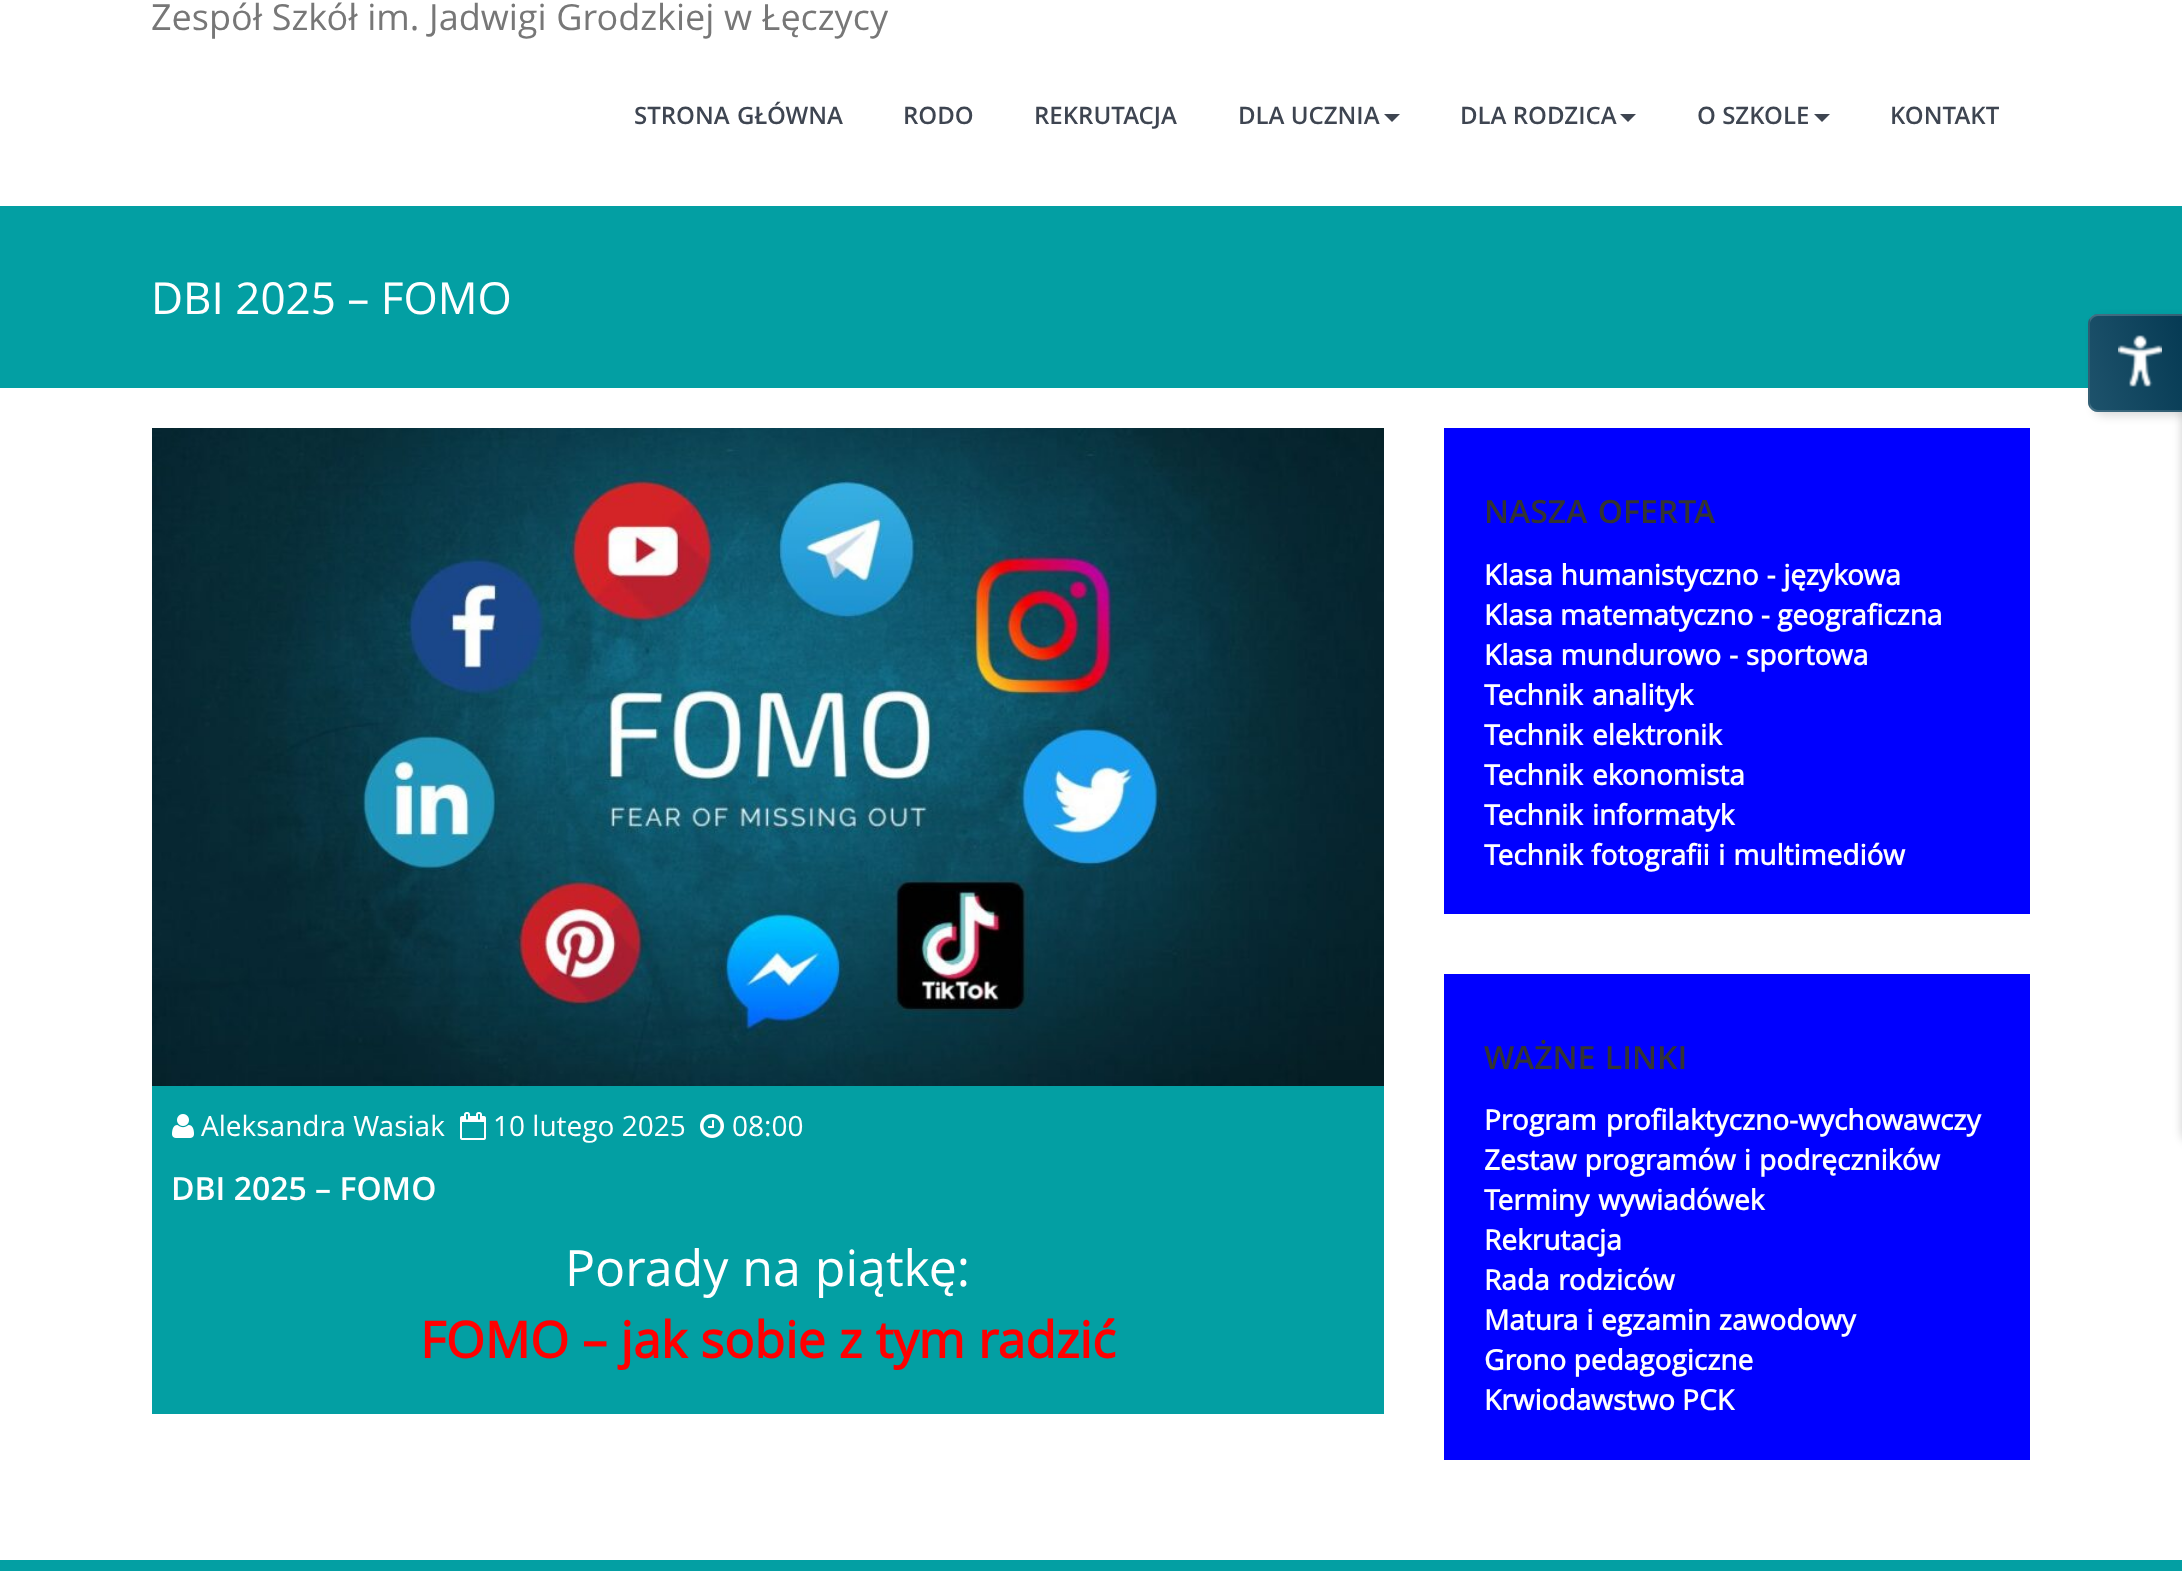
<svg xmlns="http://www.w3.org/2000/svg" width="2182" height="1571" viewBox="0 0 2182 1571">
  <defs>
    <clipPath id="clip1"><path d="M2098 314H2182V412H2098C2092.5 412 2088 407.5 2088 402V324C2088 318.5 2092.5 314 2098 314Z"/></clipPath>
    <linearGradient id="g1" gradientUnits="userSpaceOnUse" x1="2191" y1="255" x2="2081" y2="283"><stop offset="0.01" stop-color="#000" stop-opacity="0.35"/><stop offset="0.98" stop-color="#434343" stop-opacity="0.35"/></linearGradient>
    <linearGradient id="g2" gradientUnits="userSpaceOnUse" x1="2099" y1="349" x2="1989" y2="377"><stop offset="0.01" stop-color="#000" stop-opacity="0.35"/><stop offset="0.98" stop-color="#434343" stop-opacity="0.35"/></linearGradient>
    <linearGradient id="g3" gradientUnits="userSpaceOnUse" x1="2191" y1="349" x2="2081" y2="377"><stop offset="0.01" stop-color="#000" stop-opacity="0.35"/><stop offset="0.98" stop-color="#434343" stop-opacity="0.35"/></linearGradient>
    <linearGradient id="g4" gradientUnits="userSpaceOnUse" x1="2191" y1="443" x2="2081" y2="471"><stop offset="0.01" stop-color="#000" stop-opacity="0.35"/><stop offset="0.98" stop-color="#434343" stop-opacity="0.35"/></linearGradient>
  </defs>
  <rect width="100%" height="100%" fill="#fff"/>
  <path d="M1384 114H1400L1392 122Z" fill="#3e4551"/>
  <path d="M1620 114H1636L1628 122Z" fill="#3e4551"/>
  <path d="M1814 114H1830L1822 122Z" fill="#3e4551"/>
  <path d="M0 206h2182v182H0z" fill="#039fa3"/>
  <image x="152" y="428" width="1232" height="658" href="img/1.png"/>
  <path d="M152 1086h1232v328H152z" fill="#039fa3"/>
  <image x="172" y="1114" width="22" height="24" href="img/2.png"/>
  <image x="460" y="1112" width="26" height="28" href="img/3.png"/>
  <image x="700" y="1114" width="24" height="24" href="img/4.png"/>
  <path d="M1444 428h586v486H1444z" fill="#00f"/>
  <path d="M1444 974h586v486H1444z" fill="#00f"/>
  <rect x="2094" y="318" width="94" height="98" rx="10" fill="#00000024" filter="blur(5px)"/>
  <rect x="2182" y="324" width="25" height="818" rx="10" fill="#00010133" filter="blur(5px)"/>
  <path d="M2098 314H2182V412H2098C2092.5 412 2088 407.5 2088 402V324C2088 318.5 2092.5 314 2098 314Z" fill="#095a81"/>
  <g clip-path="url(#clip1)">
    <path d="M2090 314h92v2H2090z" fill="url(#g1)"/>
    <path d="M2088 316h2v94H2088z" fill="url(#g2)"/>
    <path d="M2090 316h92v94H2090z" fill="url(#g3)"/>
    <path d="M2090 410h92v2H2090z" fill="url(#g4)"/>
  </g>
  <path d="M2098 314H2182V412H2098C2092 412 2088 408 2088 402V324C2088 318 2092 314 2098 314ZM2098 316H2182V410H2098C2094 410 2090 406 2090 402V324C2090 320 2094 316 2098 316Z" fill="#ffffff2b" fill-rule="evenodd"/>
  <image x="2118" y="335" width="44" height="52" href="img/5.png"/>
  <path d="M0 1560h2182v11H0z" fill="#039fa3"/>
  <text x="151" y="30" word-spacing="0.25" font-family="Open Sans" font-size="36" fill="#777">Zespół Szkół im. Jadwigi Grodzkiej w Łęczycy</text>
  <g font-family="Open Sans" font-size="24" font-weight="600" fill="#3e4551">
    <text x="634" y="124" word-spacing="1">STRONA GŁÓWNA</text>
    <text x="903" y="124">RODO</text>
    <text x="1034" y="124">REKRUTACJA</text>
    <text x="1238" y="124">DLA UCZNIA</text>
    <text x="1460" y="124">DLA RODZICA</text>
    <text x="1697" y="124">O SZKOLE</text>
    <text x="1890" y="124">KONTAKT</text>
  </g>
  <text x="151" y="314" font-family="Open Sans" font-size="44" fill="#fff">DBI 2025 – FOMO</text>
  <g font-family="Open Sans" font-size="28" fill="#fff">
    <text x="201" y="1136">Aleksandra Wasiak</text>
    <text x="493" y="1136">10 lutego 2025</text>
    <text x="732" y="1136">08:00</text>
  </g>
  <text x="171" y="1200" font-family="Open Sans" font-size="32" font-weight="600" fill="#fff">DBI 2025 – FOMO</text>
  <text x="565" y="1286" word-spacing="1" font-family="Open Sans" font-size="50" fill="#fff">Porady na piątkę:</text>
  <text x="420" y="1358" word-spacing="0.25" font-family="Open Sans" font-size="50" font-weight="bold" fill="#f00">FOMO – jak sobie z tym radzić</text>
  <text x="1484" y="523" word-spacing="2" font-family="Open Sans" font-size="32" font-weight="600" fill="#333">NASZA OFERTA</text>
  <g font-family="Open Sans" font-size="28" font-weight="bold" fill="#fff">
    <text x="1484" y="585" word-spacing="0.5">Klasa humanistyczno - językowa</text>
    <text x="1484" y="625">Klasa matematyczno - geograficzna</text>
    <text x="1484" y="665" word-spacing="0.5">Klasa mundurowo - sportowa</text>
    <text x="1484" y="705" word-spacing="2">Technik analityk</text>
    <text x="1484" y="745" word-spacing="2">Technik elektronik</text>
    <text x="1484" y="785" word-spacing="2">Technik ekonomista</text>
    <text x="1484" y="825" word-spacing="2">Technik informatyk</text>
    <text x="1484" y="865" word-spacing="1">Technik fotografii i multimediów</text>
  </g>
  <text x="1484" y="1069" word-spacing="1" font-family="Open Sans" font-size="32" font-weight="600" fill="#333">WAŻNE LINKI</text>
  <g font-family="Open Sans" font-size="28" font-weight="bold" fill="#fff">
    <text x="1484" y="1130" word-spacing="2">Program profilaktyczno-wychowawczy</text>
    <text x="1484" y="1170" word-spacing="1">Zestaw programów i podręczników</text>
    <text x="1484" y="1210" word-spacing="2">Terminy wywiadówek</text>
    <text x="1484" y="1250">Rekrutacja</text>
    <text x="1484" y="1290" word-spacing="1">Rada rodziców</text>
    <text x="1484" y="1330" word-spacing="0.5">Matura i egzamin zawodowy</text>
    <text x="1484" y="1370">Grono pedagogiczne</text>
    <text x="1484" y="1410">Krwiodawstwo PCK</text>
  </g>
</svg>
